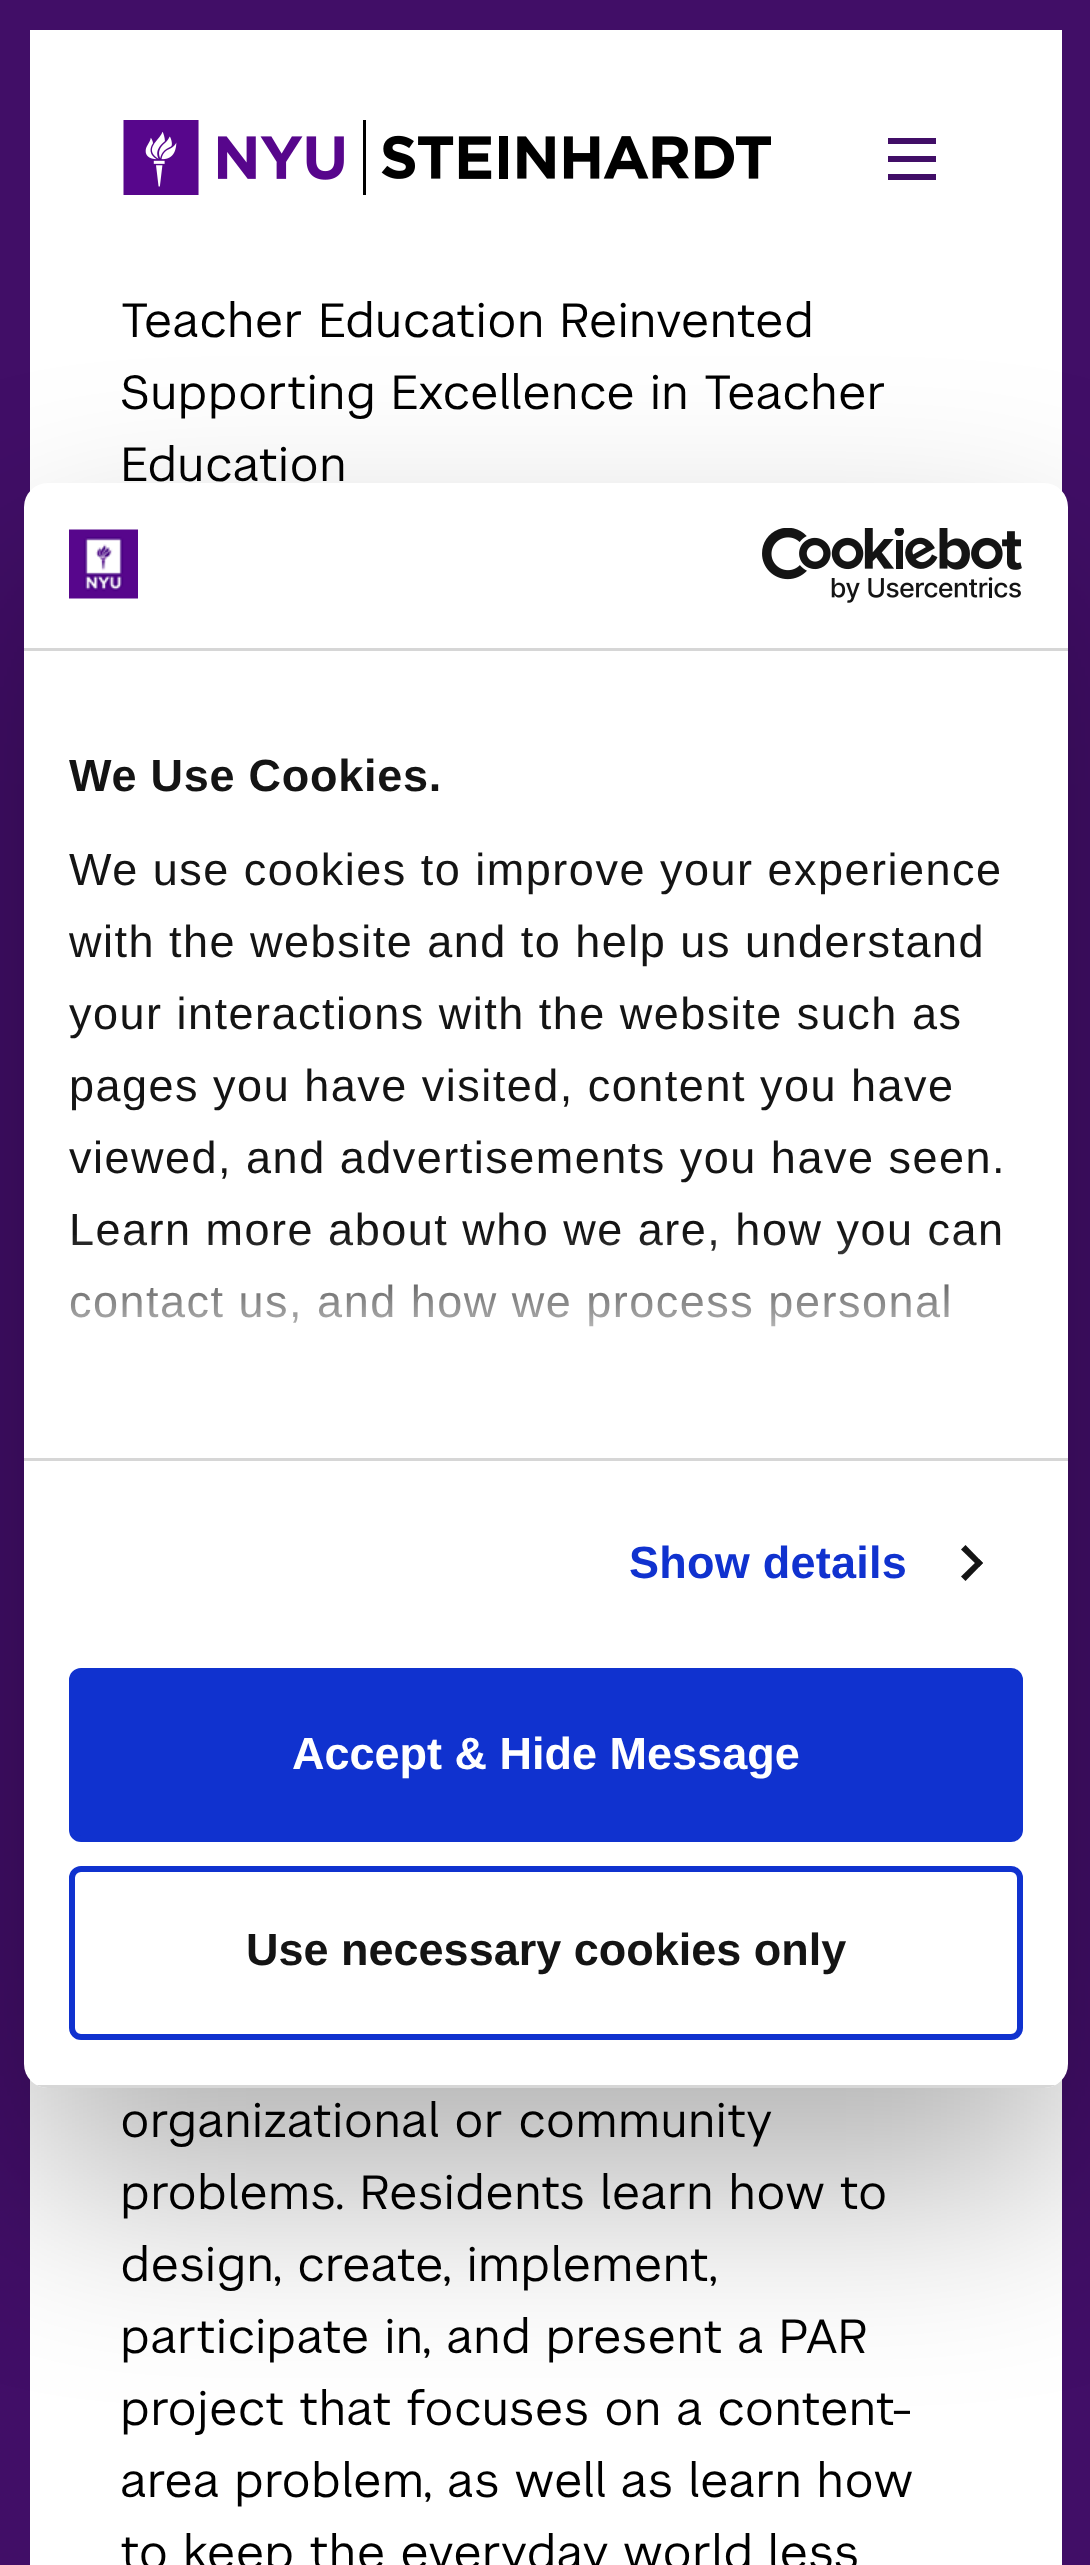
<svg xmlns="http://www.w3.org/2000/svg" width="1090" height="2565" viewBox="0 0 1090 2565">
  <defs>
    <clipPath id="clip1"><rect x="24" y="483" width="1044" height="1605" rx="24"/></clipPath>
    <linearGradient id="g1" gradientUnits="userSpaceOnUse" x1="527" y1="1457" x2="527" y2="1232"><stop offset="0" stop-color="#fff"/><stop offset="0.5" stop-color="#fff" stop-opacity="0.8"/><stop offset="1" stop-color="#fff" stop-opacity="0"/></linearGradient>
  </defs>
  <rect width="100%" height="100%" fill="#410e67"/>
  <path d="M30 30h1032v2535H30z" fill="#fff"/>
  <image x="123" y="120" width="648" height="75" href="img/1.png"/>
  <path d="M888 156h48v6H888z" fill="#410e67"/>
  <path d="M888 138h48v6H888z" fill="#410e67"/>
  <path d="M888 174h48v6H888z" fill="#410e67"/>
  <rect x="24" y="579" width="1044" height="1605" rx="24" fill="#0000004d" filter="blur(102px)"/>
  <rect x="24" y="483" width="1044" height="1605" rx="24" fill="#fff"/>
  <path d="M24 648h1044v3H24z" fill="#d6d6d6"/>
  <image x="69" y="529" width="69" height="70" href="img/2.png"/>
  <image x="762" y="528" width="260" height="75" href="img/3.png"/>
  <path d="M24 1458h1044v3H24z" fill="#d6d6d6"/>
  <path d="M965.5 1545L983 1563L979 1567L961 1549.5Z" fill="#141414"/>
  <path d="M979 1559L983 1563L965.5 1581L961 1576.5Z" fill="#141414"/>
  <g clip-path="url(#clip1)">
    <path d="M36 2085h1020v3H36z" fill="#d6d6d6"/>
  </g>
  <rect x="72" y="1671" width="948" height="168" rx="9" fill="#1032cf" stroke="#1032cf" stroke-width="6"/>
  <rect x="72" y="1869" width="948" height="168" rx="9" fill="none" stroke="#1032cf" stroke-width="6"/>
  <g font-family="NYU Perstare" font-size="48" fill="#000">
    <text x="120" y="337">Teacher Education Reinvented</text>
    <text x="120" y="409">Supporting Excellence in Teacher</text>
    <text x="120" y="481">Education</text>
    <text x="120" y="2137">organizational or community</text>
    <text x="120" y="2209">problems. Residents learn how to</text>
    <text x="120" y="2281">design, create, implement,</text>
    <text x="120" y="2353">participate in, and present a PAR</text>
    <text x="120" y="2425">project that focuses on a content-</text>
    <text x="120" y="2497">area problem, as well as learn how</text>
    <text x="120" y="2569">to keep the everyday world less</text>
  </g>
  <text x="69" y="791" font-family="Liberation Sans" font-size="45" font-weight="bold" letter-spacing="0.75" fill="#141414">We Use Cookies.</text>
  <g font-family="Liberation Sans" font-size="45" letter-spacing="1.5" fill="#141414">
    <text x="69" y="885">We use cookies to improve your experience</text>
    <text x="69" y="957">with the website and to help us understand</text>
    <text x="69" y="1029">your interactions with the website such as</text>
    <text x="69" y="1101">pages you have visited, content you have</text>
    <text x="69" y="1173">viewed, and advertisements you have seen.</text>
    <text x="69" y="1245">Learn more about who we are, how you can</text>
    <text x="69" y="1317">contact us, and how we process personal</text>
  </g>
  <path d="M70 1235h930v92H70z" fill="url(#g1)"/>
  <text x="629" y="1578" font-family="Liberation Sans" font-size="45" font-weight="bold" letter-spacing="0.25" fill="#1032cf">Show details</text>
  <text x="292" y="1769" font-family="Liberation Sans" font-size="45" font-weight="bold" fill="#fff">Accept &amp; Hide Message</text>
  <text x="246" y="1965" font-family="Liberation Sans" font-size="45" font-weight="bold" fill="#141414">Use necessary cookies only</text>
</svg>
